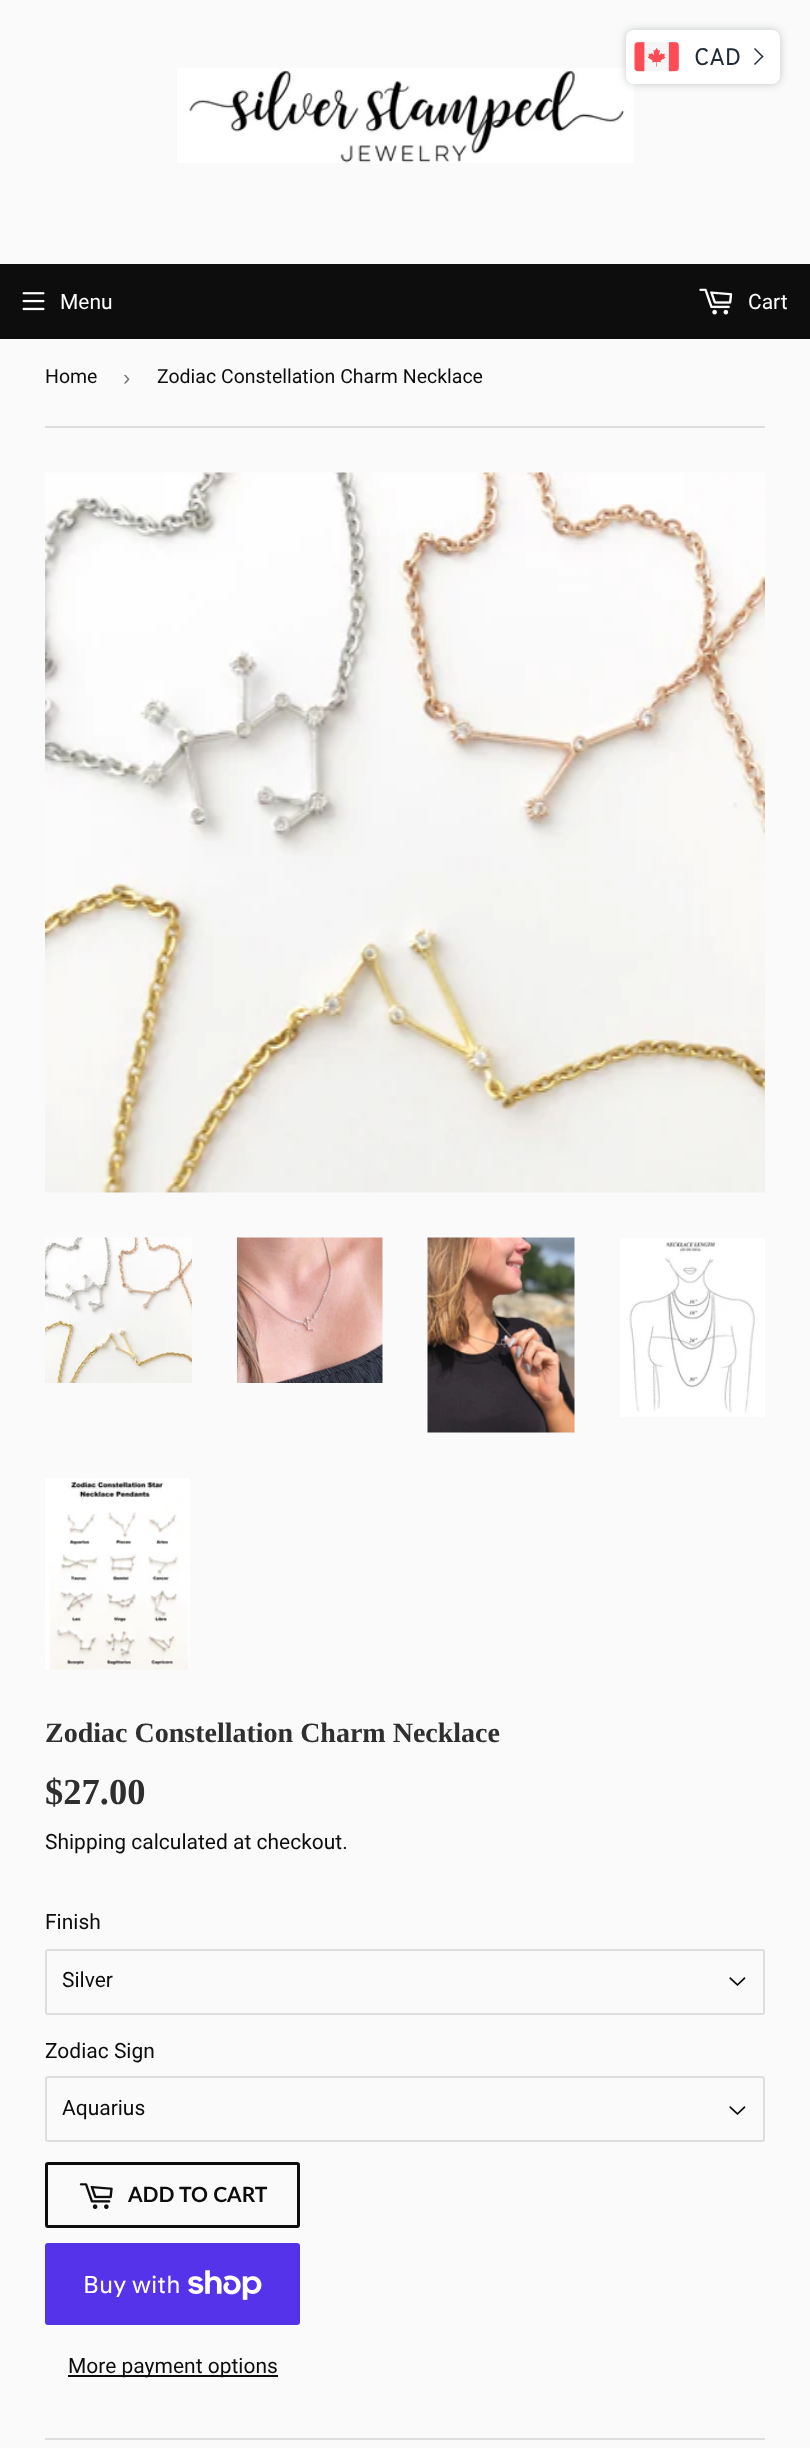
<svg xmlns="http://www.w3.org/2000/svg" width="810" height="2448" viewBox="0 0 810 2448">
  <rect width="100%" height="100%" fill="#fafafa"/>
  <image x="177" y="68" width="457" height="95" href="img/2.png"/>
  <rect x="626" y="30" width="154" height="54" rx="8" fill="#212b3640" filter="blur(4px)"/>
  <rect x="626" y="30" width="154" height="54" rx="8" fill="#fff"/>
  <image x="634" y="42" width="45" height="30" href="img/1.png"/>
  <path d="M754 49L755 48L763.5 56.5L762.5 57.5Z" fill="#212b36"/>
  <path d="M754 64L762.5 55.5L763.5 56.5L755 65Z" fill="#212b36"/>
  <path d="M0 264h810v75H0z" fill="#0d0d0d"/>
  <image x="22" y="292" width="23" height="19" href="img/3.png"/>
  <image x="699" y="288" width="34" height="27" href="img/4.png"/>
  <path d="M45 426h720v2H45z" fill="#dedede"/>
  <image x="45" y="472" width="720" height="721" href="img/5.png"/>
  <image x="45" y="1237" width="147" height="146" href="img/6.png"/>
  <image x="237" y="1237" width="146" height="146" href="img/7.png"/>
  <image x="427" y="1237" width="148" height="196" href="img/8.png"/>
  <image x="620" y="1238" width="145" height="179" href="img/9.png"/>
  <image x="45" y="1478" width="145" height="192" href="img/10.png"/>
  <image x="729" y="1977" width="17" height="9" href="img/11.png"/>
  <rect x="46" y="1950" width="718" height="64" rx="2" fill="none" stroke="#dedede" stroke-width="2"/>
  <image x="729" y="2106" width="17" height="9" href="img/11.png"/>
  <rect x="46" y="2077" width="718" height="64" rx="2" fill="none" stroke="#dedede" stroke-width="2"/>
  <rect x="46.5" y="2163.5" width="252" height="63" rx="1.5" fill="none" stroke="#0d0d0d" stroke-width="3"/>
  <image x="79" y="2183" width="34" height="26" href="img/12.png"/>
  <rect x="45" y="2243" width="255" height="82" rx="3" fill="#5433eb"/>
  <image x="188" y="2270" width="74" height="30" href="img/13.png"/>
  <path d="M68 2375h210v2H68z" fill="#0d0d0d"/>
  <path d="M45 2438h720v2H45z" fill="#dedede"/>
  <text x="694" y="65" font-family="Overpass" font-size="24" fill="#212b36">CAD</text>
  <g font-family="Roboto" font-size="21" fill="#fff">
    <text x="60" y="309">Menu</text>
    <text x="748" y="309">Cart</text>
  </g>
  <text x="45" y="383" font-family="Roboto" font-size="19.5" fill="#0d0d0d">Home</text>
  <text x="123" y="385" font-family="Liberation Sans" font-size="22" fill="#767676">›</text>
  <text x="157" y="383" font-family="Roboto" font-size="19.5" fill="#0d0d0d">Zodiac Constellation Charm Necklace</text>
  <text x="45" y="1742" font-family="Liberation Serif" font-size="28" font-weight="bold" fill="#2f2f2f">Zodiac Constellation Charm Necklace</text>
  <text x="45" y="1804" font-family="Liberation Serif" font-size="36.5" font-weight="bold" fill="#2f2f2f">$27.00</text>
  <g font-family="Roboto" font-size="21" fill="#0d0d0d">
    <text x="45" y="1849">Shipping calculated at checkout.</text>
    <text x="45" y="1929">Finish</text>
    <text x="62" y="1987">Silver</text>
    <text x="45" y="2058">Zodiac Sign</text>
    <text x="62" y="2115">Aquarius</text>
  </g>
  <text x="128" y="2202" font-family="Lato" font-size="21" font-weight="bold" fill="#0d0d0d">ADD TO CART</text>
  <text x="83" y="2293" font-family="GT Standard" font-size="24" fill="#fff">Buy with</text>
  <text x="68" y="2373" font-family="Roboto" font-size="21" fill="#0d0d0d">More payment options</text>
</svg>
